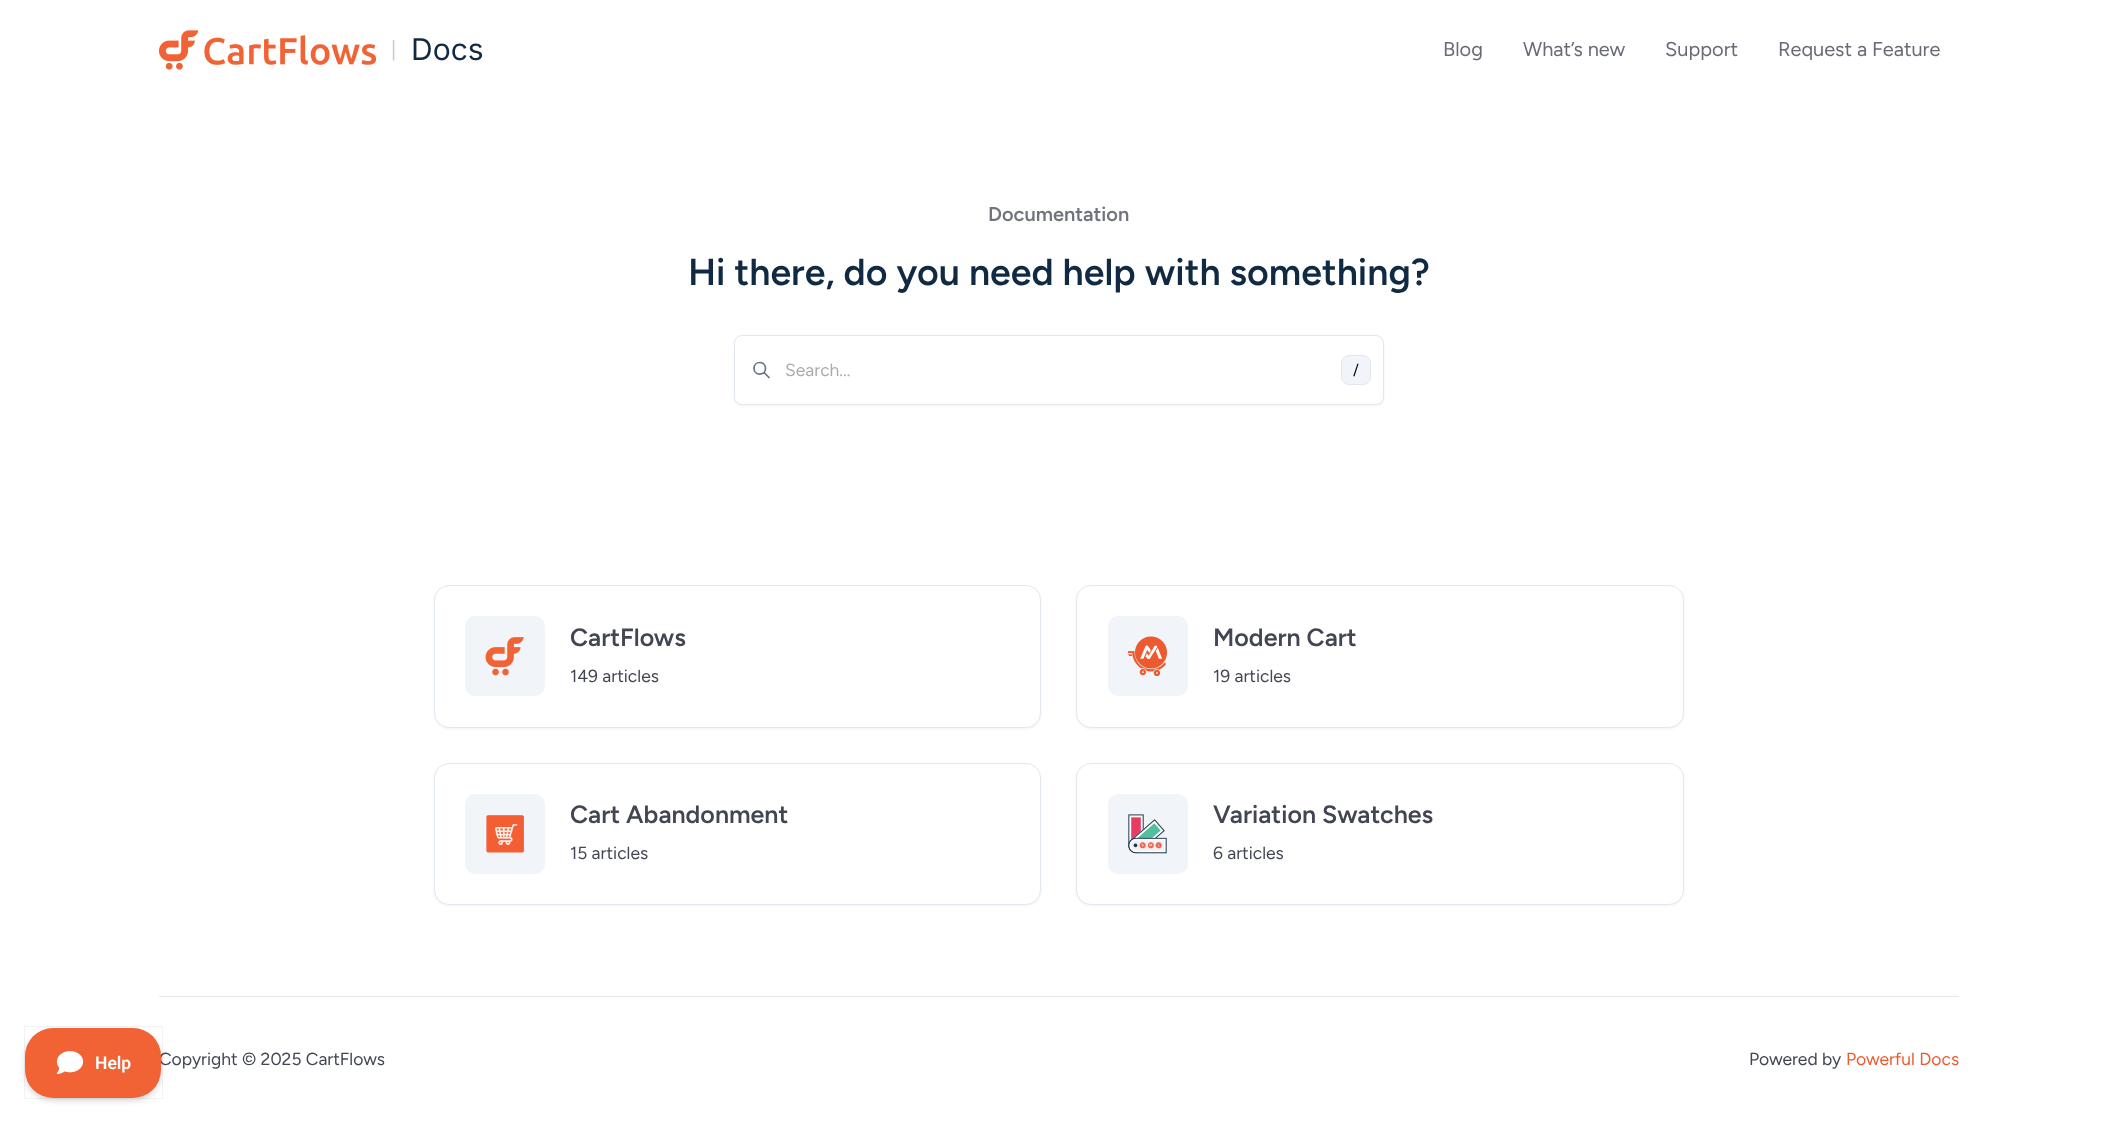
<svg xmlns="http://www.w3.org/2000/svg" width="2117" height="1122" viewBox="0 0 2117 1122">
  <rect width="100%" height="100%" fill="#fff"/>
  <image x="159" y="30" width="217" height="40" href="img/1.png"/>
  <rect x="734" y="336" width="650" height="70" rx="8" fill="#0000000d" filter="blur(1px)"/>
  <rect x="734.5" y="335.5" width="649" height="69" rx="7.5" fill="#fff" stroke="#e2e8f0"/>
  <path d="M769 377.5L764 372.5M765.5 368.5C765.5 376 754 376 754 368.5C754 360.5 765.5 360.5 765.5 368.5Z" fill="none" stroke="#64748b" stroke-width="1.7" stroke-linecap="round" stroke-linejoin="round"/>
  <rect x="1341.5" y="355.5" width="29" height="29" rx="7.5" fill="#f1f5f9" stroke="#e2e8f0"/>
  <rect x="434" y="586" width="607" height="143" rx="15" fill="#0000000d" filter="blur(1px)"/>
  <rect x="434.5" y="585.5" width="606" height="142" rx="14.5" fill="#fff" stroke="#e2e8f0"/>
  <rect x="465" y="616" width="80" height="80" rx="10" fill="#f1f5f9"/>
  <image x="485" y="637" width="39" height="39" href="img/2.png"/>
  <rect x="1076" y="586" width="608" height="143" rx="15" fill="#0000000d" filter="blur(1px)"/>
  <rect x="1076.5" y="585.5" width="607" height="142" rx="14.5" fill="#fff" stroke="#e2e8f0"/>
  <rect x="1108" y="616" width="80" height="80" rx="10" fill="#f1f5f9"/>
  <image x="1128" y="636" width="39" height="40" href="img/3.png"/>
  <rect x="434" y="764" width="607" height="142" rx="15" fill="#0000000d" filter="blur(1px)"/>
  <rect x="434.5" y="763.5" width="606" height="141" rx="14.5" fill="#fff" stroke="#e2e8f0"/>
  <rect x="465" y="794" width="80" height="80" rx="10" fill="#f1f5f9"/>
  <image x="486" y="815" width="38" height="38" href="img/4.png"/>
  <rect x="1076" y="764" width="608" height="142" rx="15" fill="#0000000d" filter="blur(1px)"/>
  <rect x="1076.5" y="763.5" width="607" height="141" rx="14.5" fill="#fff" stroke="#e2e8f0"/>
  <rect x="1108" y="794" width="80" height="80" rx="10" fill="#f1f5f9"/>
  <image x="1128" y="814" width="39" height="40" href="img/5.png"/>
  <rect x="25" y="1031" width="136" height="70" rx="28" fill="#0000000d" filter="blur(2px)"/>
  <rect x="25" y="1031" width="136" height="70" rx="28" fill="#0000001a" filter="blur(3px)"/>
  <path d="M159 996h1800v1H159z" fill="#e2e8f0"/>
  <text x="391" y="56" font-family="Figtree" font-size="20" fill="#c3cad0">|</text>
  <text x="411" y="60" font-family="Inter" font-size="30" fill="#102a43">Docs</text>
  <g font-family="Figtree" font-size="20" fill="#686b75">
    <text x="1443" y="56">Blog</text>
    <text x="1523" y="56">What’s new</text>
    <text x="1665" y="56">Support</text>
    <text x="1778" y="56">Request a Feature</text>
  </g>
  <text x="988" y="221" font-family="Figtree" font-size="20" font-weight="600" fill="#71747d">Documentation</text>
  <text x="688" y="285" font-family="Figtree" font-size="37.5" font-weight="600" fill="#102a43">Hi there, do you need help with something?</text>
  <text x="785" y="376" font-family="Figtree" font-size="17.5" fill="#aaacb1">Search...</text>
  <text x="1353" y="375" font-family="Figtree" font-size="15" fill="#000">/</text>
  <text x="570" y="646" font-family="Figtree" font-size="25" font-weight="600" fill="#424652">CartFlows</text>
  <text x="570" y="682" font-family="Figtree" font-size="17.5" fill="#424652">149 articles</text>
  <text x="1213" y="646" font-family="Figtree" font-size="25" font-weight="600" fill="#424652">Modern Cart</text>
  <text x="1213" y="682" font-family="Figtree" font-size="17.5" fill="#424652">19 articles</text>
  <text x="570" y="823" font-family="Figtree" font-size="25" font-weight="600" fill="#424652">Cart Abandonment</text>
  <text x="570" y="859" font-family="Figtree" font-size="17.5" fill="#424652">15 articles</text>
  <text x="1213" y="823" font-family="Figtree" font-size="25" font-weight="600" fill="#424652">Variation Swatches</text>
  <g font-family="Figtree" font-size="17.5" fill="#424652">
    <text x="1213" y="859">6 articles</text>
    <text x="159" y="1065">Copyright © 2025 CartFlows</text>
  </g>
  <path d="M24.5 1026.5h138v72H24.5z" fill="none" stroke="#0000000d"/>
  <rect x="25" y="1028" width="136" height="70" rx="28" fill="#f16334"/>
  <image x="56" y="1051" width="28" height="23" href="img/6.png"/>
  <text x="95" y="1069" font-family="Roboto" font-size="17.5" font-weight="600" fill="#fff">Help</text>
  <text x="1749" y="1065" font-family="Figtree" font-size="17.5" fill="#424652">Powered by</text>
  <text x="1846" y="1065" font-family="Figtree" font-size="17.5" fill="#ee5a2f">Powerful Docs</text>
</svg>
